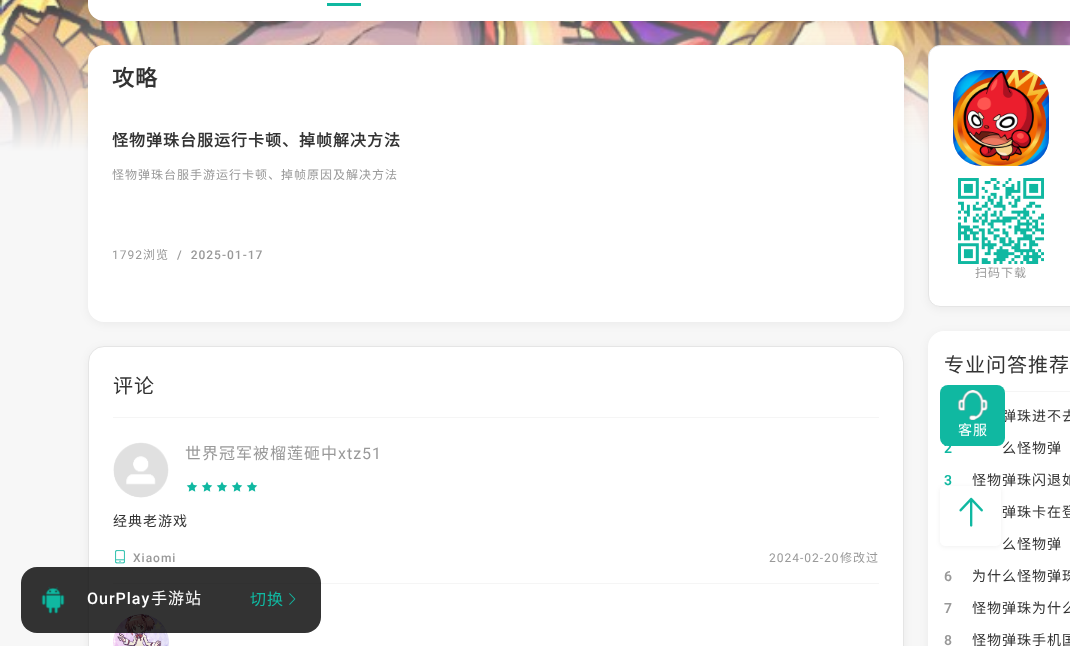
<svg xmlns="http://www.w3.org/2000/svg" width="1070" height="646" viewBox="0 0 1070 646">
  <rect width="100%" height="100%" fill="#f7f7f7"/>
  <image x="0" y="0" width="1070" height="151" href="img/1.png"/>
  <rect x="88" y="-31" width="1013" height="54" rx="16" fill="#0000000d" filter="blur(5px)"/>
  <rect x="88" y="-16" width="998" height="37" rx="16" fill="#fff"/>
  <path d="M327 3h34v3H327z" fill="#10b8a1"/>
  <rect x="88" y="47" width="816" height="277" rx="16" fill="#0000000d" filter="blur(5px)"/>
  <rect x="88" y="45" width="816" height="277" rx="16" fill="#fff"/>
  <rect x="88" y="348" width="816" height="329" rx="16" fill="#0000000d" filter="blur(5px)"/>
  <rect x="88.5" y="346.5" width="815" height="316" rx="15.5" fill="#fff" stroke="#e5e5e5"/>
  <path d="M113 417h766v1H113z" fill="#f5f5f5"/>
  <path d="M113 583h766v1H113z" fill="#f5f5f5"/>
  <image x="113" y="442" width="56" height="56" href="img/2.png"/>
  <image x="186" y="481" width="12" height="11" href="img/3.png"/>
  <image x="201" y="481" width="12" height="11" href="img/3.png"/>
  <image x="216" y="481" width="12" height="11" href="img/3.png"/>
  <image x="231" y="481" width="12" height="11" href="img/3.png"/>
  <image x="246" y="481" width="12" height="11" href="img/3.png"/>
  <image x="115" y="550" width="10" height="14" href="img/4.png"/>
  <image x="113" y="614" width="56" height="32" href="img/5.png"/>
  <rect x="928" y="47" width="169" height="262" rx="12" fill="#0000000d" filter="blur(5px)"/>
  <rect x="928.5" y="45.5" width="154" height="261" rx="11.5" fill="#fff" stroke="#e5e5e5"/>
  <rect x="953" y="70" width="96" height="96" rx="28" fill="#d8d8d8"/>
  <image x="953" y="70" width="96" height="96" href="img/6.png"/>
  <image x="958" y="178" width="86" height="86" href="img/7.png"/>
  <rect x="928" y="333" width="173" height="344" rx="16" fill="#0000000d" filter="blur(5px)"/>
  <rect x="928" y="331" width="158" height="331" rx="16" fill="#fff"/>
  <path d="M1004 391h66v1H1004z" fill="#f5f5f5"/>
  <rect x="940" y="487" width="61" height="60" rx="5" fill="#0000000f" filter="blur(2.5px)"/>
  <rect x="21" y="567" width="300" height="66" rx="16" fill="#000000cc"/>
  <image x="41" y="587" width="24" height="27" href="img/10.png"/>
  <image x="289" y="593" width="7" height="12" href="img/11.png"/>
  <text x="112" y="86" font-family="Noto Sans CJK SC" font-size="22" font-weight="bold" letter-spacing="1" fill="#333">攻略</text>
  <text x="112" y="146" font-family="Noto Sans CJK SC" font-size="16" font-weight="bold" letter-spacing="1" fill="#333">怪物弹珠台服运行卡顿、掉帧解决方法</text>
  <text x="112" y="179" font-family="Noto Sans CJK SC" font-size="12" letter-spacing="1" fill="#999">怪物弹珠台服手游运行卡顿、掉帧原因及解决方法</text>
  <text x="112" y="259" font-family="Roboto" font-size="12" letter-spacing="1" fill="#999">1792</text>
  <text x="143" y="259" font-family="Noto Sans CJK SC" font-size="12" letter-spacing="1" fill="#999">浏览</text>
  <text x="177" y="259" font-family="Roboto" font-size="12" font-weight="500" letter-spacing="1" fill="#999" xml:space="preserve">/  2025-01-17</text>
  <text x="113" y="393" font-family="Noto Sans CJK SC" font-size="20" letter-spacing="1" fill="#333">评论</text>
  <text x="185" y="459" font-family="Noto Sans CJK SC" font-size="16" letter-spacing="1" fill="#999">世界冠军被榴莲砸中</text>
  <text x="338" y="459" font-family="Roboto" font-size="16" letter-spacing="1" fill="#999">xtz51</text>
  <text x="113" y="526" font-family="Noto Sans CJK SC" font-size="14" letter-spacing="1" fill="#333">经典老游戏</text>
  <text x="133" y="562" font-family="Roboto" font-size="12" font-weight="500" letter-spacing="1" fill="#999">Xiaomi</text>
  <text x="769" y="562" font-family="Roboto" font-size="12" letter-spacing="1" fill="#999">2024-02-20</text>
  <g font-family="Noto Sans CJK SC" font-size="12" letter-spacing="1" fill="#999">
    <text x="840" y="562">修改过</text>
    <text x="975" y="277">扫码下载</text>
  </g>
  <text x="944" y="372" font-family="Noto Sans CJK SC" font-size="20" letter-spacing="1" fill="#333">专业问答推荐</text>
  <text x="1002" y="421" font-family="Noto Sans CJK SC" font-size="14" letter-spacing="1" fill="#333">弹珠进不去</text>
  <text x="944" y="453" font-family="Roboto" font-size="14" font-weight="600" letter-spacing="1" fill="#10b8a1">2</text>
  <text x="1002" y="453" font-family="Noto Sans CJK SC" font-size="14" letter-spacing="1" fill="#333">么怪物弹</text>
  <text x="944" y="485" font-family="Roboto" font-size="14" font-weight="600" letter-spacing="1" fill="#10b8a1">3</text>
  <g font-family="Noto Sans CJK SC" font-size="14" letter-spacing="1" fill="#333">
    <text x="972" y="485">怪物弹珠闪退如</text>
    <text x="1002" y="517">弹珠卡在登</text>
    <text x="1002" y="549">么怪物弹</text>
  </g>
  <text x="944" y="581" font-family="Roboto" font-size="14" font-weight="600" letter-spacing="1" fill="#999">6</text>
  <text x="972" y="581" font-family="Noto Sans CJK SC" font-size="14" letter-spacing="1" fill="#333">为什么怪物弹珠</text>
  <text x="944" y="613" font-family="Roboto" font-size="14" font-weight="600" letter-spacing="1" fill="#999">7</text>
  <text x="972" y="613" font-family="Noto Sans CJK SC" font-size="14" letter-spacing="1" fill="#333">怪物弹珠为什么</text>
  <text x="944" y="645" font-family="Roboto" font-size="14" font-weight="600" letter-spacing="1" fill="#999">8</text>
  <text x="972" y="645" font-family="Noto Sans CJK SC" font-size="14" letter-spacing="1" fill="#333">怪物弹珠手机国</text>
  <rect x="940" y="385" width="65" height="61" rx="8" fill="#10b8a1"/>
  <image x="957" y="390" width="31" height="30" href="img/8.png"/>
  <text x="958" y="435" font-family="Noto Sans CJK SC" font-size="14" letter-spacing="1" fill="#fff">客服</text>
  <rect x="940" y="486" width="61" height="60" rx="5" fill="#fff"/>
  <image x="959" y="497" width="24" height="30" href="img/9.png"/>
  <text x="87" y="604" font-family="Roboto" font-size="16" font-weight="500" letter-spacing="1" fill="#fff">OurPlay</text>
  <text x="151" y="604" font-family="Noto Sans CJK SC" font-size="16" letter-spacing="1" fill="#fff">手游站</text>
  <text x="250" y="605" font-family="Noto Sans CJK SC" font-size="16" letter-spacing="1" fill="#10b8a1">切换</text>
</svg>
